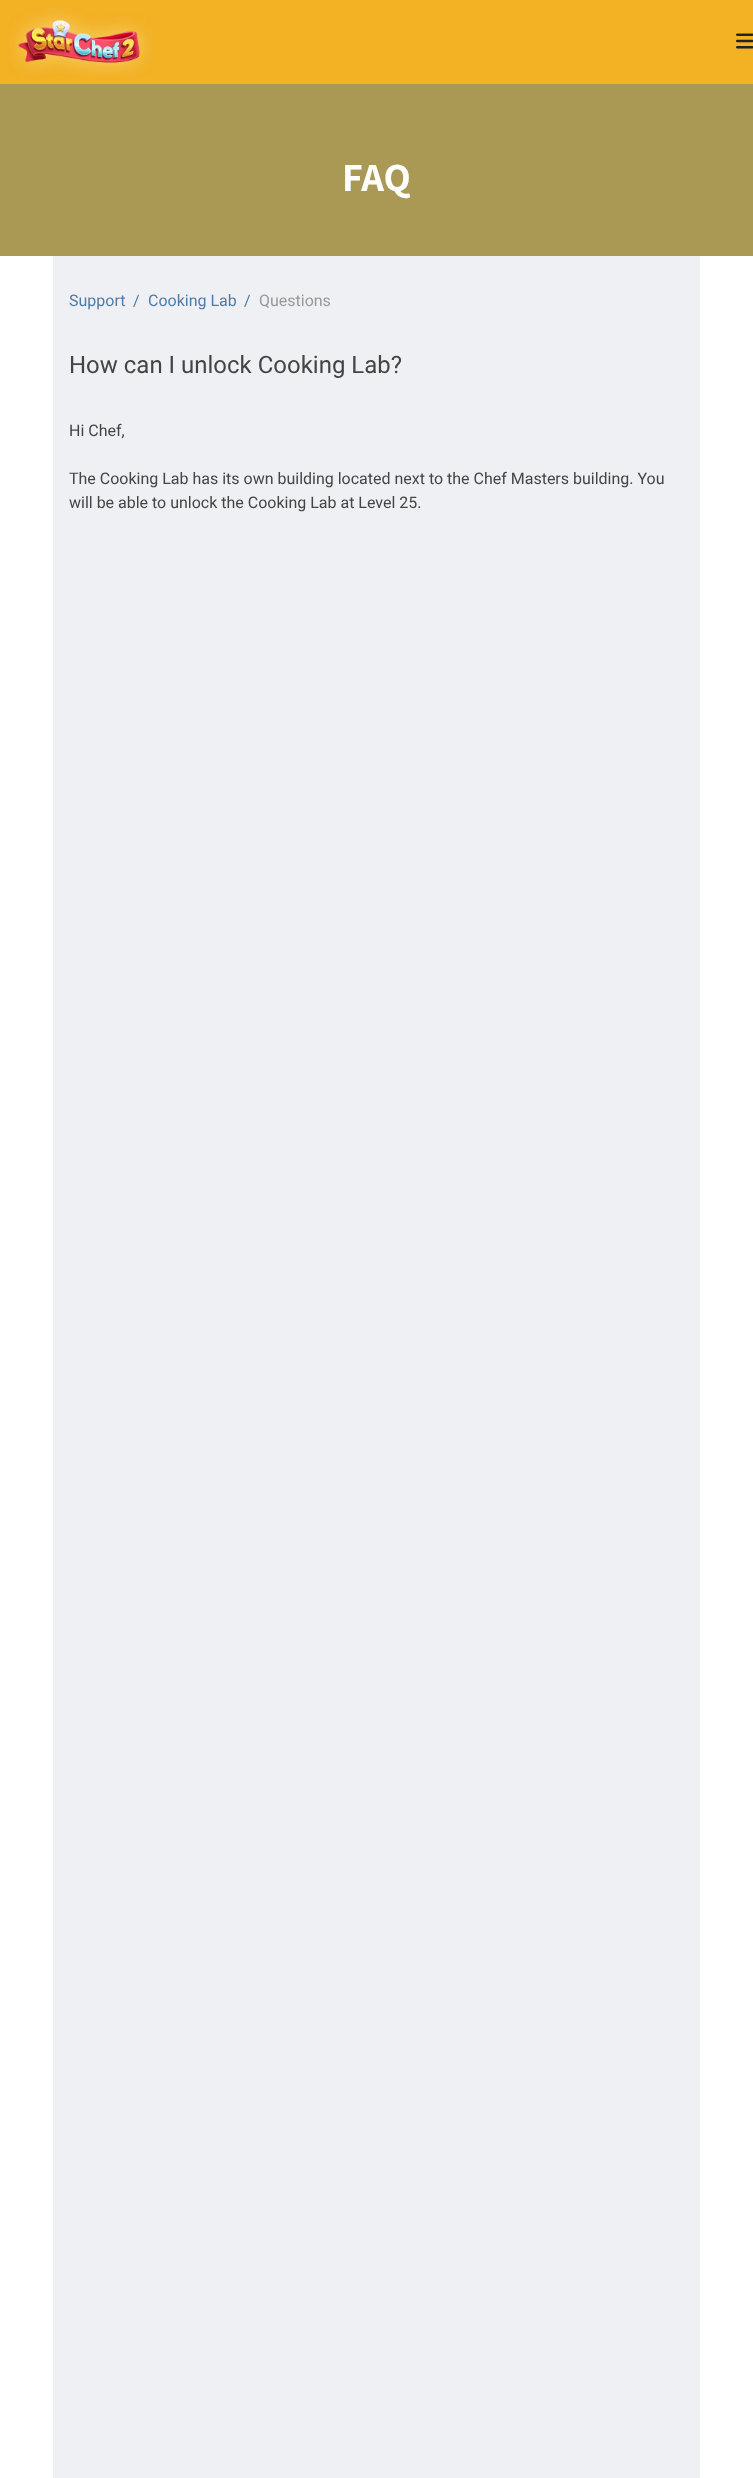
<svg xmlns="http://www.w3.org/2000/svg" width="753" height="2478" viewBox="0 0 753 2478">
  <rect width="100%" height="100%" fill="#fff"/>
  <path d="M0 0h753v84H0z" fill="#f3b224"/>
  <image x="9" y="8" width="144" height="69" href="img/1.png"/>
  <image x="736" y="33" width="17" height="16" href="img/2.png"/>
  <path d="M0 84h753v172H0z" fill="#a95"/>
  <path d="M53 256h647v2222H53z" fill="#eff0f4"/>
  <text x="342" y="191" font-family="Assistant" font-size="40" font-weight="bold" fill="#fff">FAQ</text>
  <g font-family="Roboto" font-size="16" fill="#4d7ca8">
    <text x="69" y="306">Support</text>
    <text x="133" y="306">/</text>
    <text x="148" y="306">Cooking Lab</text>
    <text x="244" y="306">/</text>
  </g>
  <text x="259" y="306" font-family="Roboto" font-size="16" fill="#999">Questions</text>
  <text x="69" y="373" font-family="Roboto" font-size="24" fill="#444">How can I unlock Cooking Lab?</text>
  <g font-family="Roboto" font-size="16" fill="#444">
    <text x="69" y="436">Hi Chef,</text>
    <text x="69" y="484">The Cooking Lab has its own building located next to the Chef Masters building. You</text>
    <text x="69" y="508">will be able to unlock the Cooking Lab at Level 25.</text>
  </g>
</svg>
